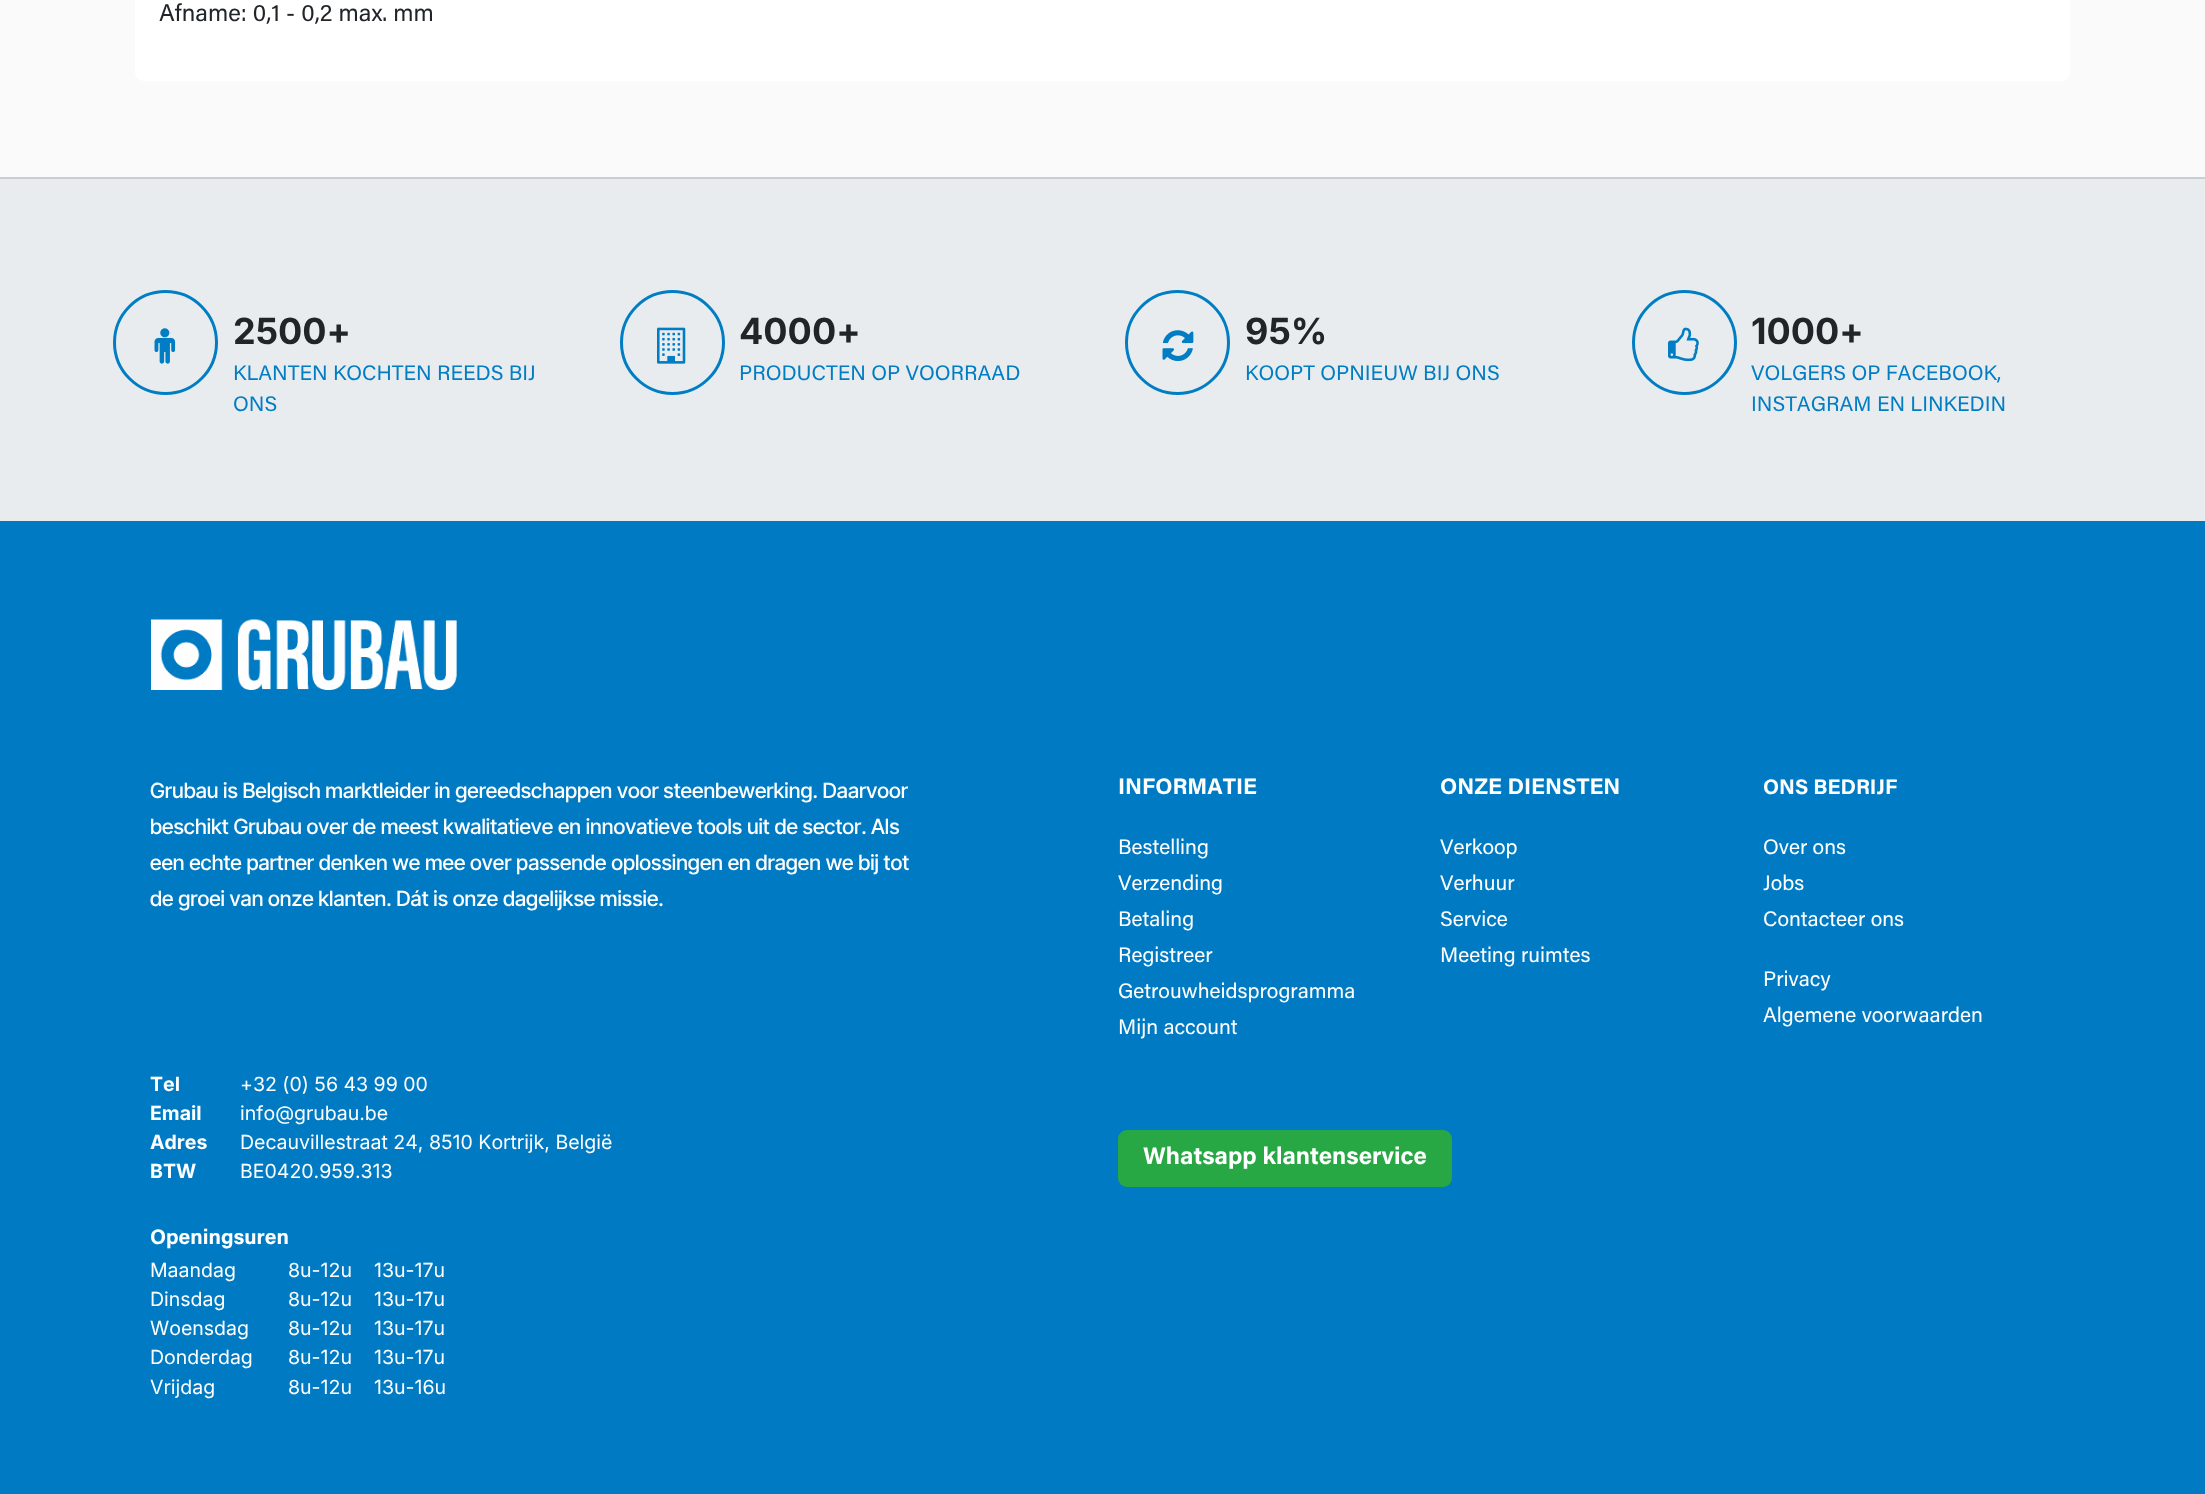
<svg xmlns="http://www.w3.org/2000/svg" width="2205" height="1494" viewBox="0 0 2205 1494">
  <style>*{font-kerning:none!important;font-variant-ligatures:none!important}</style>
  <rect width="100%" height="100%" fill="#fafafa"/>
  <path d="M135-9H2070V72C2070 77 2066 81 2061 81H144C139 81 135 77 135 72Z" fill="#fff"/>
  <path d="M0 179h2205v342H0z" fill="#e9ecef"/>
  <path d="M0 177h2205v2H0z" fill="#cbced1"/>
  <circle cx="165.5" cy="342.5" r="51" fill="none" stroke="#007dc3" stroke-width="3"/>
  <image x="154" y="328" width="22" height="36" href="img/1.png"/>
  <circle cx="672.5" cy="342.5" r="51" fill="none" stroke="#007dc3" stroke-width="3"/>
  <image x="657" y="327" width="29" height="37" href="img/2.png"/>
  <circle cx="1177.5" cy="342.5" r="51" fill="none" stroke="#007dc3" stroke-width="3"/>
  <image x="1162" y="330" width="32" height="32" href="img/3.png"/>
  <circle cx="1684.5" cy="342.5" r="51" fill="none" stroke="#007dc3" stroke-width="3"/>
  <image x="1668" y="327" width="31" height="35" href="img/4.png"/>
  <path d="M0 521h2205v973H0z" fill="#007bc3"/>
  <image x="151" y="619" width="306" height="71" href="img/5.png"/>
  <rect x="1118" y="1130" width="334" height="57" rx="9" fill="#28a745"/>
  <text x="159" y="21" font-family="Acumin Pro" font-size="24" fill="#212529">Afname: 0,1 - 0,2 max. mm</text>
  <text x="233" y="344" font-family="Inter" font-size="36" font-weight="bold" fill="#212529">2500+</text>
  <g font-family="Acumin Pro" font-size="21" fill="#007dc3">
    <text x="233" y="380">KLANTEN KOCHTEN REEDS BIJ</text>
    <text x="233" y="411">ONS</text>
  </g>
  <text x="739" y="344" font-family="Inter" font-size="36" font-weight="bold" fill="#212529">4000+</text>
  <text x="739" y="380" font-family="Acumin Pro" font-size="21" fill="#007dc3">PRODUCTEN OP VOORRAAD</text>
  <text x="1245" y="344" font-family="Inter" font-size="36" font-weight="bold" fill="#212529">95%</text>
  <text x="1245" y="380" font-family="Acumin Pro" font-size="21" fill="#007dc3">KOOPT OPNIEUW BIJ ONS</text>
  <text x="1751" y="344" font-family="Inter" font-size="36" font-weight="bold" fill="#212529">1000+</text>
  <g font-family="Acumin Pro" font-size="21" fill="#007dc3">
    <text x="1751" y="380">VOLGERS OP FACEBOOK,</text>
    <text x="1751" y="411">INSTAGRAM EN LINKEDIN</text>
  </g>
  <g font-family="Inter Tight" font-size="21" font-weight="500" fill="#fff">
    <text x="150" y="798">Grubau is Belgisch marktleider in gereedschappen voor steenbewerking. Daarvoor</text>
    <text x="150" y="834">beschikt Grubau over de meest kwalitatieve en innovatieve tools uit de sector.</text>
    <text x="871" y="834">Als</text>
    <text x="150" y="870">een echte partner denken we mee over passende oplossingen en dragen we bij tot</text>
    <text x="150" y="906">de groei van onze klanten. Dát is onze dagelijkse missie.</text>
  </g>
  <text x="1118" y="794" font-family="Acumin Pro" font-size="22.5" font-weight="bold" fill="#fff">INFORMATIE</text>
  <g font-family="Acumin Pro" font-size="21" fill="#fff">
    <text x="1118" y="854">Bestelling</text>
    <text x="1118" y="890">Verzending</text>
    <text x="1118" y="926">Betaling</text>
    <text x="1118" y="962">Registreer</text>
    <text x="1118" y="998">Getrouwheidsprogramma</text>
    <text x="1118" y="1034">Mijn account</text>
  </g>
  <text x="1440" y="794" font-family="Acumin Pro" font-size="22.5" font-weight="bold" fill="#fff">ONZE DIENSTEN</text>
  <g font-family="Acumin Pro" font-size="21" fill="#fff">
    <text x="1440" y="854">Verkoop</text>
    <text x="1440" y="890">Verhuur</text>
    <text x="1440" y="926">Service</text>
    <text x="1440" y="962">Meeting ruimtes</text>
  </g>
  <text x="1763" y="794" font-family="Acumin Pro" font-size="21" font-weight="bold" fill="#fff">ONS BEDRIJF</text>
  <g font-family="Acumin Pro" font-size="21" fill="#fff">
    <text x="1763" y="854">Over ons</text>
    <text x="1763" y="890">Jobs</text>
    <text x="1763" y="926">Contacteer ons</text>
    <text x="1763" y="986">Privacy</text>
    <text x="1763" y="1022">Algemene voorwaarden</text>
  </g>
  <text x="150" y="1091" font-family="Inter" font-size="19.5" font-weight="bold" fill="#fff">Tel</text>
  <text x="240" y="1091" font-family="Inter" font-size="19.5" fill="#fff">+32 (0) 56 43 99 00</text>
  <text x="150" y="1120" font-family="Inter" font-size="19.5" font-weight="bold" fill="#fff">Email</text>
  <text x="240" y="1120" font-family="Inter" font-size="19.5" fill="#fff">info@grubau.be</text>
  <text x="150" y="1149" font-family="Inter" font-size="19.5" font-weight="bold" fill="#fff">Adres</text>
  <text x="240" y="1149" font-family="Inter" font-size="19.5" fill="#fff">Decauvillestraat 24, 8510 Kortrijk, België</text>
  <text x="150" y="1178" font-family="Inter" font-size="19.5" font-weight="bold" fill="#fff">BTW</text>
  <text x="240" y="1178" font-family="Inter" font-size="19.5" fill="#fff">BE0420.959.313</text>
  <text x="1143" y="1164" font-family="Acumin Pro" font-size="24" font-weight="bold" fill="#fff">Whatsapp klantenservice</text>
  <text x="150" y="1244" font-family="Acumin Pro" font-size="21" font-weight="bold" fill="#fff">Openingsuren</text>
  <g font-family="Inter" font-size="19.5" fill="#fff">
    <text x="150" y="1277">Maandag</text>
    <text x="288" y="1277">8u-12u</text>
    <text x="374" y="1277">13u-17u</text>
    <text x="150" y="1306">Dinsdag</text>
    <text x="288" y="1306">8u-12u</text>
    <text x="374" y="1306">13u-17u</text>
    <text x="150" y="1335">Woensdag</text>
    <text x="288" y="1335">8u-12u</text>
    <text x="374" y="1335">13u-17u</text>
    <text x="150" y="1364">Donderdag</text>
    <text x="288" y="1364">8u-12u</text>
    <text x="374" y="1364">13u-17u</text>
    <text x="150" y="1394">Vrijdag</text>
    <text x="288" y="1394">8u-12u</text>
    <text x="374" y="1394">13u-16u</text>
  </g>
</svg>
